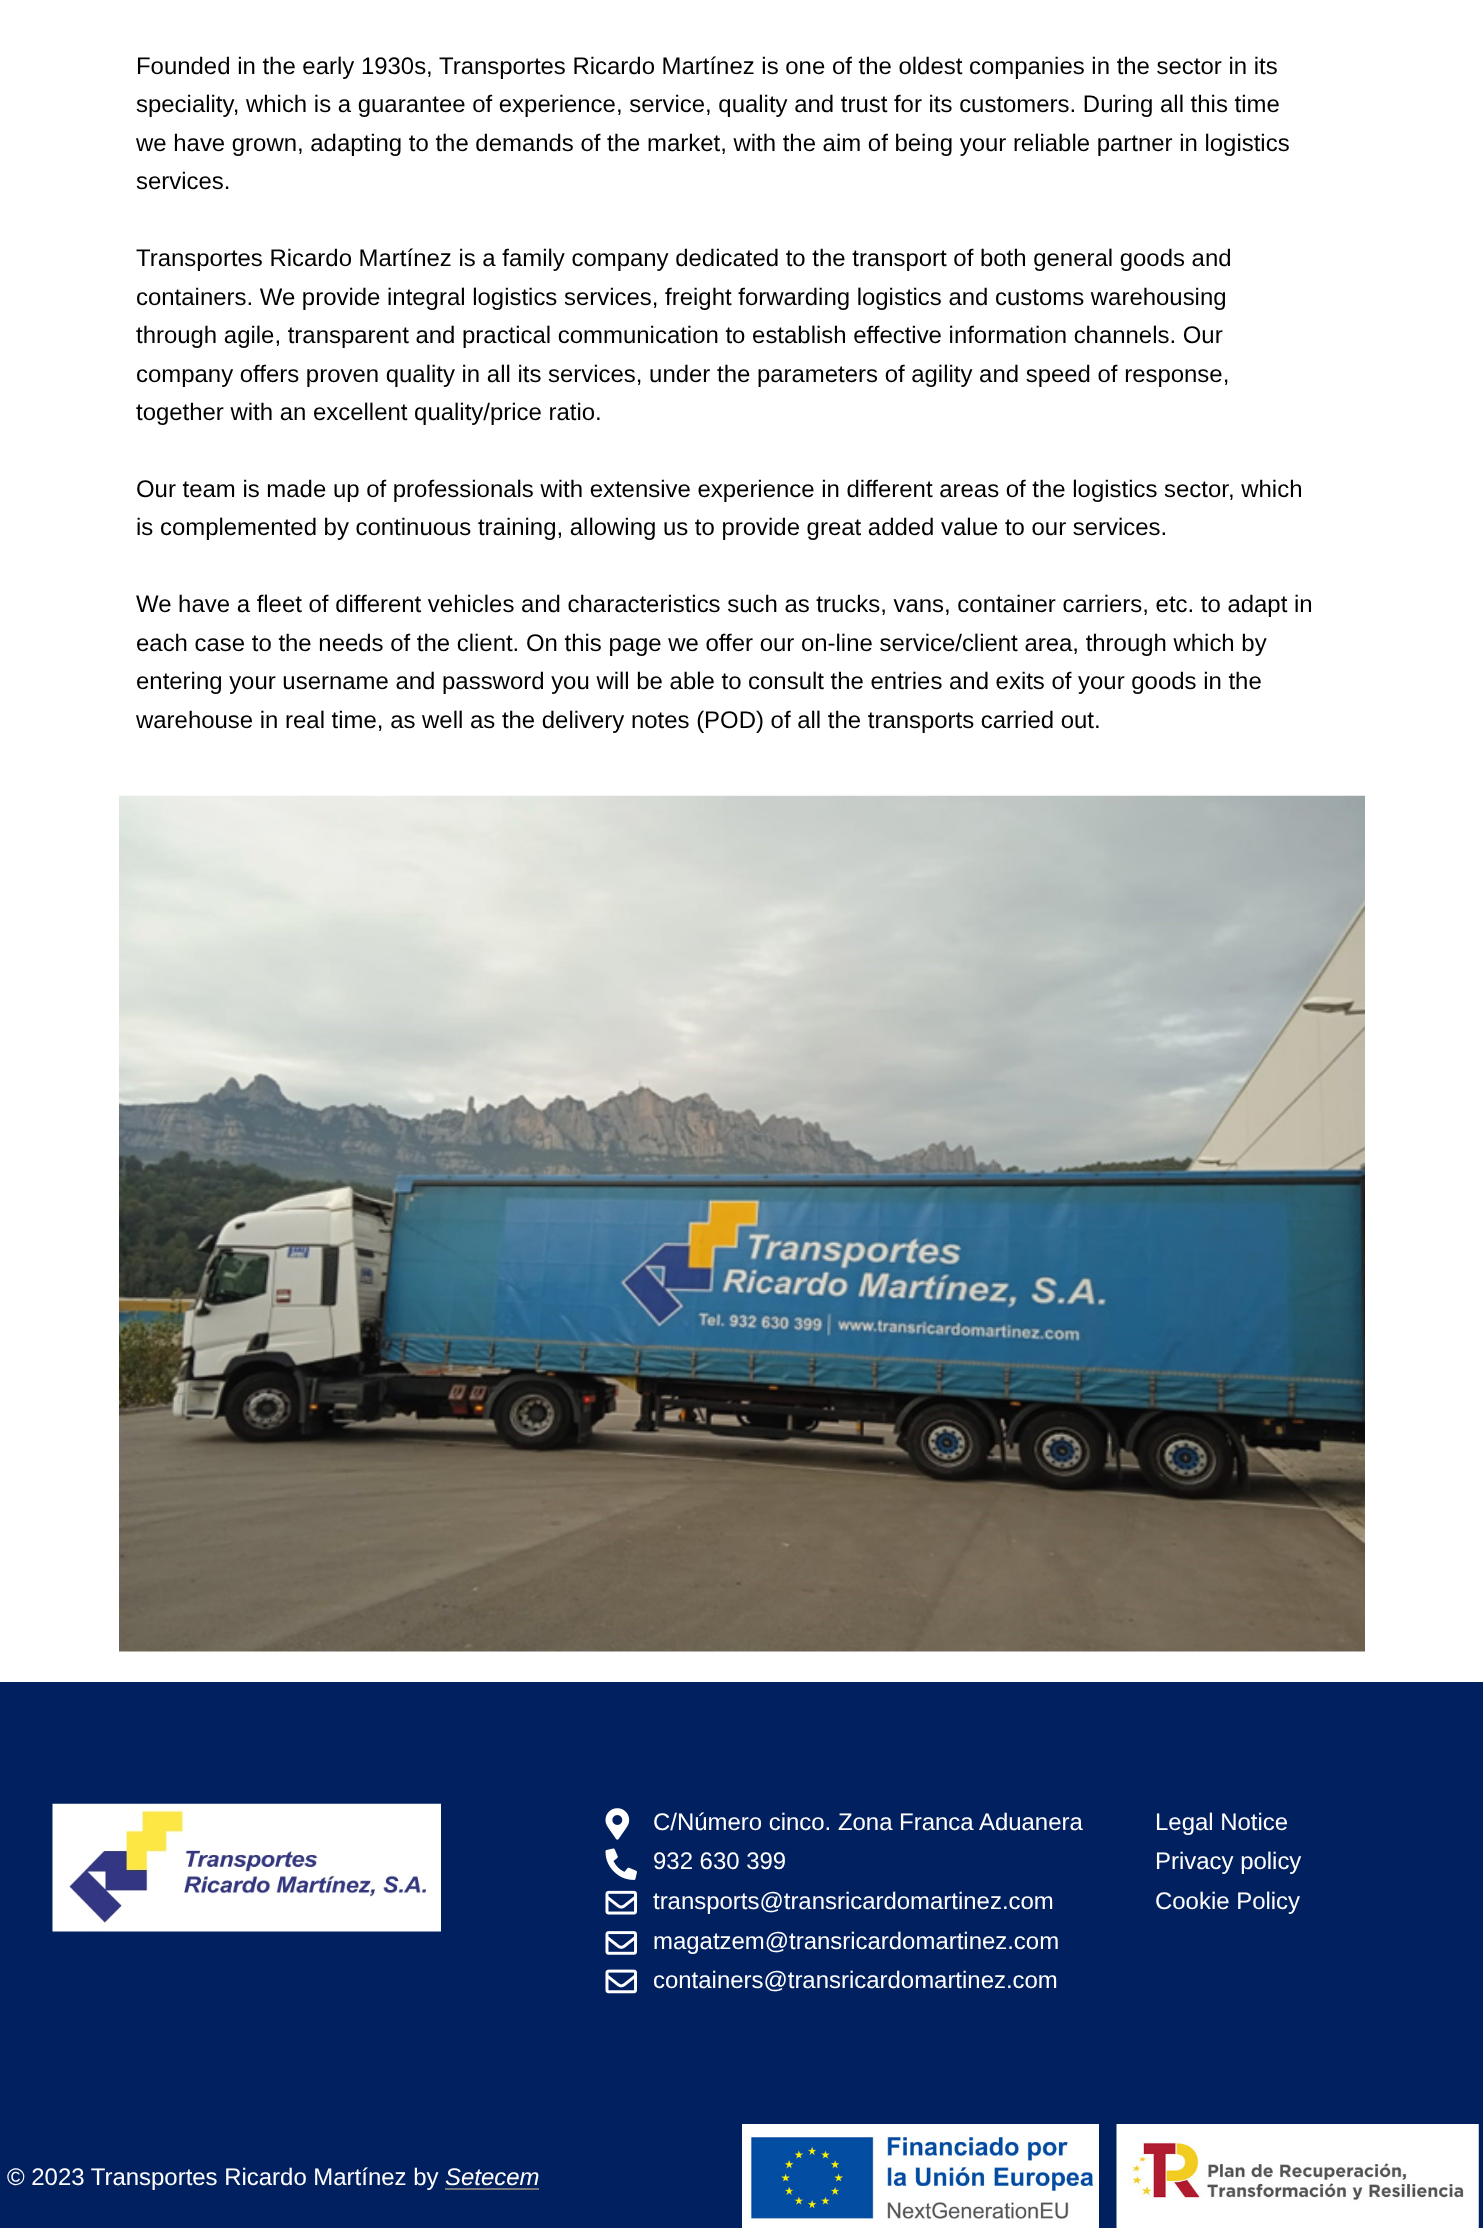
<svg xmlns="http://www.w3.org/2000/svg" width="1483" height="2228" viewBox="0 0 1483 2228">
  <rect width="100%" height="100%" fill="#fff"/>
  <image x="119" y="795" width="1246" height="857" href="img/1.png"/>
  <path d="M0 1682h1483v546H0z" fill="#002060"/>
  <image x="52" y="1803" width="389" height="129" href="img/2.png"/>
  <image x="605" y="1808" width="25" height="32" href="img/3.png"/>
  <image x="605" y="1848" width="32" height="32" href="img/4.png"/>
  <image x="605" y="1890" width="32" height="25" href="img/5.png"/>
  <image x="605" y="1931" width="32" height="24" href="img/6.png"/>
  <image x="605" y="1969" width="32" height="25" href="img/7.png"/>
  <path d="M445 2188h94v2H445z" fill="#7a7a7a"/>
  <image x="742" y="2124" width="357" height="104" href="img/8.png"/>
  <image x="1116" y="2124" width="363" height="104" href="img/9.png"/>
  <g font-family="Liberation Sans" font-size="23.95" fill="#000">
    <text x="136" y="74">Founded in the early 1930s, Transportes Ricardo Martínez is one of the oldest companies in the sector in its</text>
    <text x="136" y="112">speciality, which is a guarantee of experience, service, quality and trust for its customers. During all this time</text>
    <text x="136" y="151">we have grown, adapting to the demands of the market, with the aim of being your reliable partner in logistics</text>
    <text x="136" y="189">services.</text>
    <text x="136" y="266">Transportes Ricardo Martínez is a family company dedicated to the transport of both general goods and</text>
    <text x="136" y="305">containers. We provide integral logistics services, freight forwarding logistics and customs warehousing</text>
    <text x="136" y="343">through agile, transparent and practical communication to establish effective information channels. Our</text>
    <text x="136" y="382">company offers proven quality in all its services, under the parameters of agility and speed of response,</text>
    <text x="136" y="420">together with an excellent quality/price ratio.</text>
    <text x="136" y="497">Our team is made up of professionals with extensive experience in different areas of the logistics sector, which</text>
    <text x="136" y="535">is complemented by continuous training, allowing us to provide great added value to our services.</text>
    <text x="136" y="612">We have a fleet of different vehicles and characteristics such as trucks, vans, container carriers, etc. to adapt in</text>
    <text x="136" y="651">each case to the needs of the client. On this page we offer our on-line service/client area, through which by</text>
    <text x="136" y="689">entering your username and password you will be able to consult the entries and exits of your goods in the</text>
    <text x="136" y="728">warehouse in real time, as well as the delivery notes (POD) of all the transports carried out.</text>
  </g>
  <g font-family="Liberation Sans" font-size="23.95" fill="#fff">
    <text x="653" y="1830">C/Número cinco. Zona Franca Aduanera</text>
    <text x="653" y="1869">932 630 399</text>
    <text x="653" y="1909">transports@transricardomartinez.com</text>
    <text x="653" y="1949">magatzem@transricardomartinez.com</text>
    <text x="653" y="1988">containers@transricardomartinez.com</text>
    <text x="1155" y="1830">Legal Notice</text>
    <text x="1155" y="1869">Privacy policy</text>
    <text x="1155" y="1909">Cookie Policy</text>
    <text x="7" y="2185">© 2023 Transportes Ricardo Martínez by</text>
  </g>
  <text x="445" y="2185" font-family="Liberation Sans" font-size="23.95" font-style="italic" fill="#fff">Setecem</text>
</svg>
